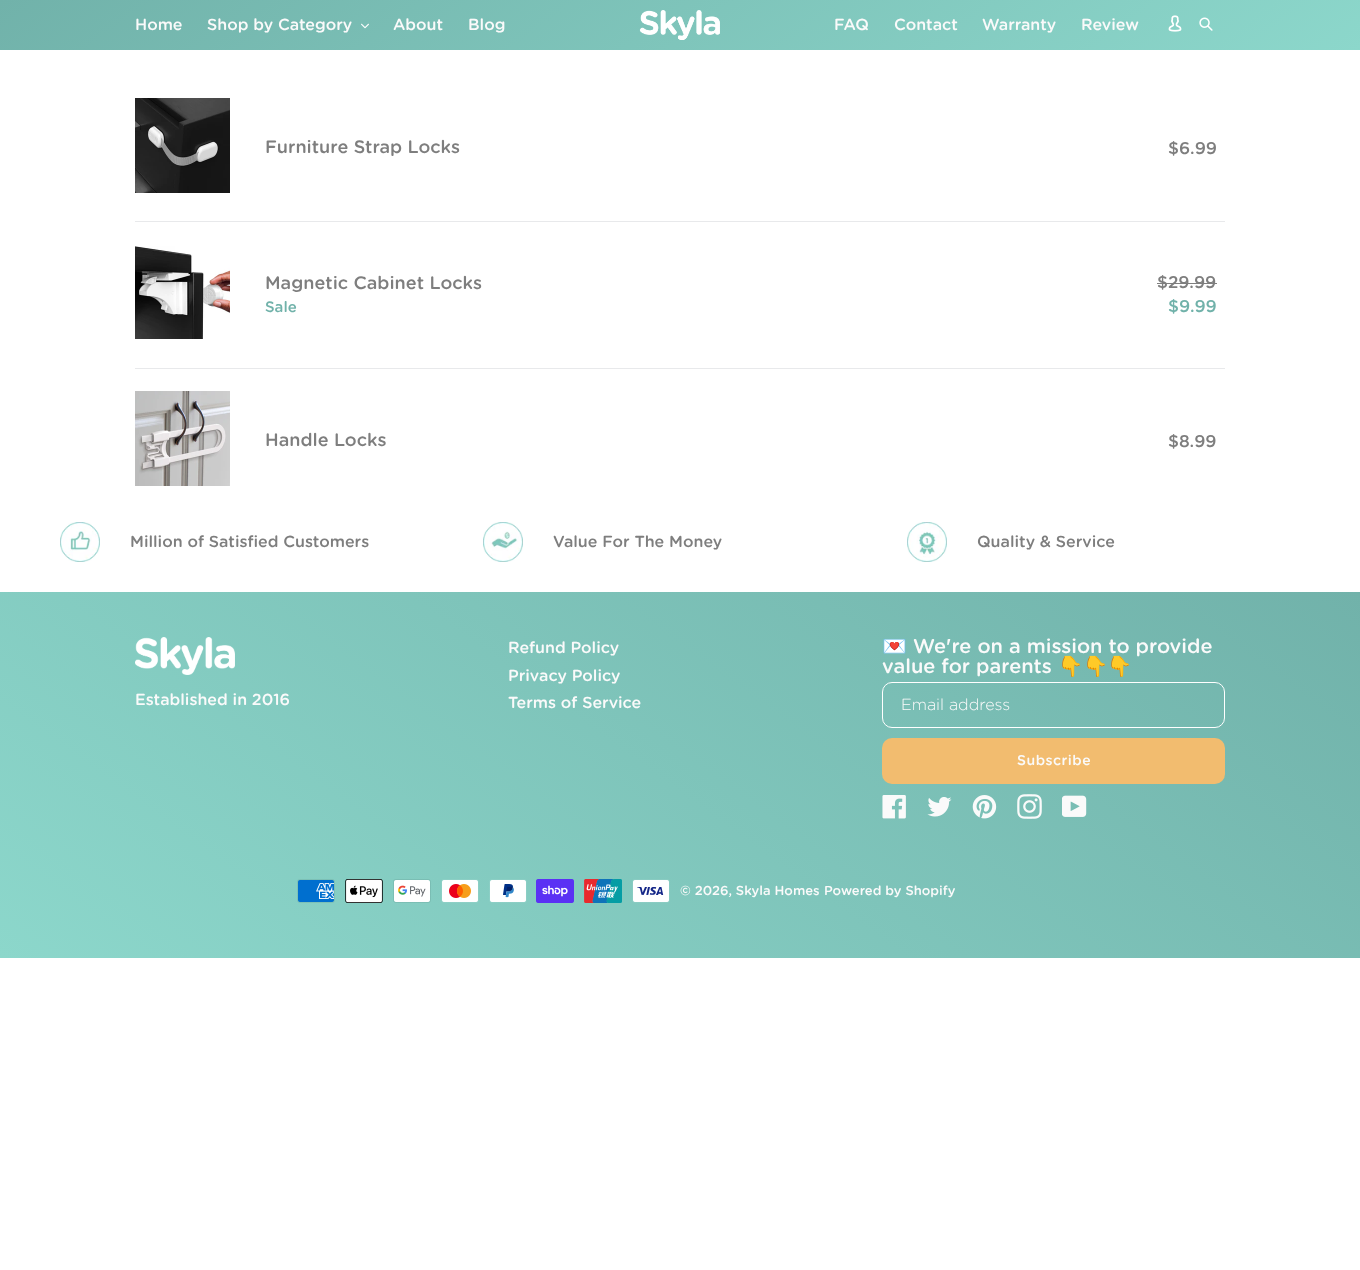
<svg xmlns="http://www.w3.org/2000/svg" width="1360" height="1270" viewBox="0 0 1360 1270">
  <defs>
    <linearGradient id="g1" gradientUnits="userSpaceOnUse" x1="927" y1="365" x2="433" y2="-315"><stop offset="0" stop-color="#8cd7cb"/><stop offset="1" stop-color="#71b2aa"/></linearGradient>
    <linearGradient id="g2" gradientUnits="userSpaceOnUse" x1="358" y1="1218" x2="1002" y2="332"><stop offset="0" stop-color="#8cd7cb"/><stop offset="1" stop-color="#71b2aa"/></linearGradient>
    <clipPath id="clip1"><path d="M105 637h1120v242H105z"/></clipPath>
  </defs>
  <rect width="100%" height="100%" fill="#fff"/>
  <path d="M0 0h1360v50H0z" fill="url(#g1)"/>
  <image x="361" y="23" width="8" height="6" href="img/1.png"/>
  <image x="639" y="10" width="81" height="30" href="img/2.png"/>
  <image x="1168" y="15" width="14" height="17" href="img/3.png"/>
  <image x="1199" y="17" width="14" height="14" href="img/4.png"/>
  <path d="M135 221h1090v1H135z" fill="#e8e9eb"/>
  <image x="135" y="98" width="95" height="95" href="img/5.png"/>
  <path d="M135 368h1090v1H135z" fill="#e8e9eb"/>
  <image x="135" y="246" width="95" height="93" href="img/6.png"/>
  <path d="M1157 283h60v1H1157z" fill="#7e7e7e"/>
  <image x="135" y="391" width="95" height="95" href="img/7.png"/>
  <image x="60" y="522" width="40" height="40" href="img/8.png"/>
  <image x="483" y="522" width="40" height="40" href="img/9.png"/>
  <image x="907" y="522" width="40" height="40" href="img/10.png"/>
  <path d="M0 592h1360v366H0z" fill="url(#g2)"/>
  <image x="135" y="637" width="100" height="38" href="img/11.png"/>
  <rect x="882.5" y="682.5" width="342" height="45" rx="9.5" fill="none" stroke="#fff"/>
  <rect x="882" y="738" width="343" height="46" rx="10" fill="#f2bc6f"/>
  <image x="882" y="795" width="24" height="24" href="img/12.png"/>
  <image x="927" y="797" width="25" height="20" href="img/13.png"/>
  <image x="972" y="795" width="25" height="24" href="img/14.png"/>
  <image x="1017" y="794" width="25" height="25" href="img/15.png"/>
  <image x="1062" y="795" width="25" height="22" href="img/16.png"/>
  <image x="297" y="879" width="38" height="24" href="img/17.png"/>
  <image x="345" y="879" width="38" height="24" href="img/18.png"/>
  <image x="393" y="879" width="38" height="24" href="img/19.png"/>
  <image x="441" y="879" width="38" height="24" href="img/20.png"/>
  <image x="489" y="879" width="38" height="24" href="img/21.png"/>
  <image x="536" y="879" width="38" height="24" href="img/22.png"/>
  <image x="584" y="879" width="38" height="24" href="img/23.png"/>
  <image x="632" y="879" width="38" height="24" href="img/24.png"/>
  <g font-family="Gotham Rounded" font-size="16" font-weight="500" fill="#fafafa">
    <text x="135" y="30">Home</text>
    <text x="207" y="30">Shop by Category</text>
    <text x="393" y="30">About</text>
    <text x="468" y="30">Blog</text>
    <text x="834" y="30">FAQ</text>
    <text x="894" y="30">Contact</text>
    <text x="982" y="30">Warranty</text>
    <text x="1081" y="30">Review</text>
  </g>
  <text x="265" y="153" font-family="Gotham Rounded" font-size="18" font-weight="500" fill="#7e7e7e">Furniture Strap Locks</text>
  <text x="1168" y="154" font-family="Gotham Rounded" font-size="17" font-weight="500" fill="#7e7e7e">$6.99</text>
  <text x="265" y="289" font-family="Gotham Rounded" font-size="18" font-weight="500" fill="#7e7e7e">Magnetic Cabinet Locks</text>
  <text x="265" y="312" font-family="Gotham Rounded" font-size="15" font-weight="500" fill="#71b2aa">Sale</text>
  <text x="1157" y="288" font-family="Gotham Rounded" font-size="17" font-weight="500" fill="#7e7e7e">$29.99</text>
  <text x="1168" y="312" font-family="Gotham Rounded" font-size="17" font-weight="500" fill="#71b2aa">$9.99</text>
  <text x="265" y="446" font-family="Gotham Rounded" font-size="18" font-weight="500" fill="#7e7e7e">Handle Locks</text>
  <text x="1168" y="447" font-family="Gotham Rounded" font-size="17" font-weight="500" fill="#7e7e7e">$8.99</text>
  <g font-family="Gotham Rounded" font-size="16" font-weight="500" fill="#7e7e7e">
    <text x="130" y="547">Million of Satisfied Customers</text>
    <text x="553" y="547">Value For The Money</text>
    <text x="977" y="547">Quality &amp; Service</text>
  </g>
  <g font-family="Gotham Rounded" font-size="16" font-weight="500" fill="#fafafa">
    <text x="135" y="705">Established in 2016</text>
    <text x="508" y="653">Refund Policy</text>
    <text x="508" y="681">Privacy Policy</text>
    <text x="508" y="708">Terms of Service</text>
  </g>
  <g clip-path="url(#clip1)">
    <text x="882" y="653" font-family="Noto Color Emoji" font-size="20" fill="#fafafa">💌</text>
  </g>
  <g font-family="Gotham Rounded" font-size="20" font-weight="500" fill="#fafafa">
    <text x="913" y="653">We're on a mission to provide</text>
    <text x="882" y="673">value for parents</text>
  </g>
  <text x="1058" y="673" font-family="Noto Color Emoji" font-size="20" fill="#fafafa">👇👇👇</text>
  <text x="901" y="710" font-family="Gotham Rounded" font-size="16" font-weight="300" fill="#fafafa">Email address</text>
  <text x="1017" y="765" font-family="Gotham Rounded" font-size="14" font-weight="500" letter-spacing="0.5" fill="#fafafa">Subscribe</text>
  <g font-family="Gotham Rounded" font-size="13" font-weight="500" fill="#fafafa">
    <text x="680" y="895">© 2026, Skyla Homes</text>
    <text x="824" y="895">Powered by Shopify</text>
  </g>
</svg>
